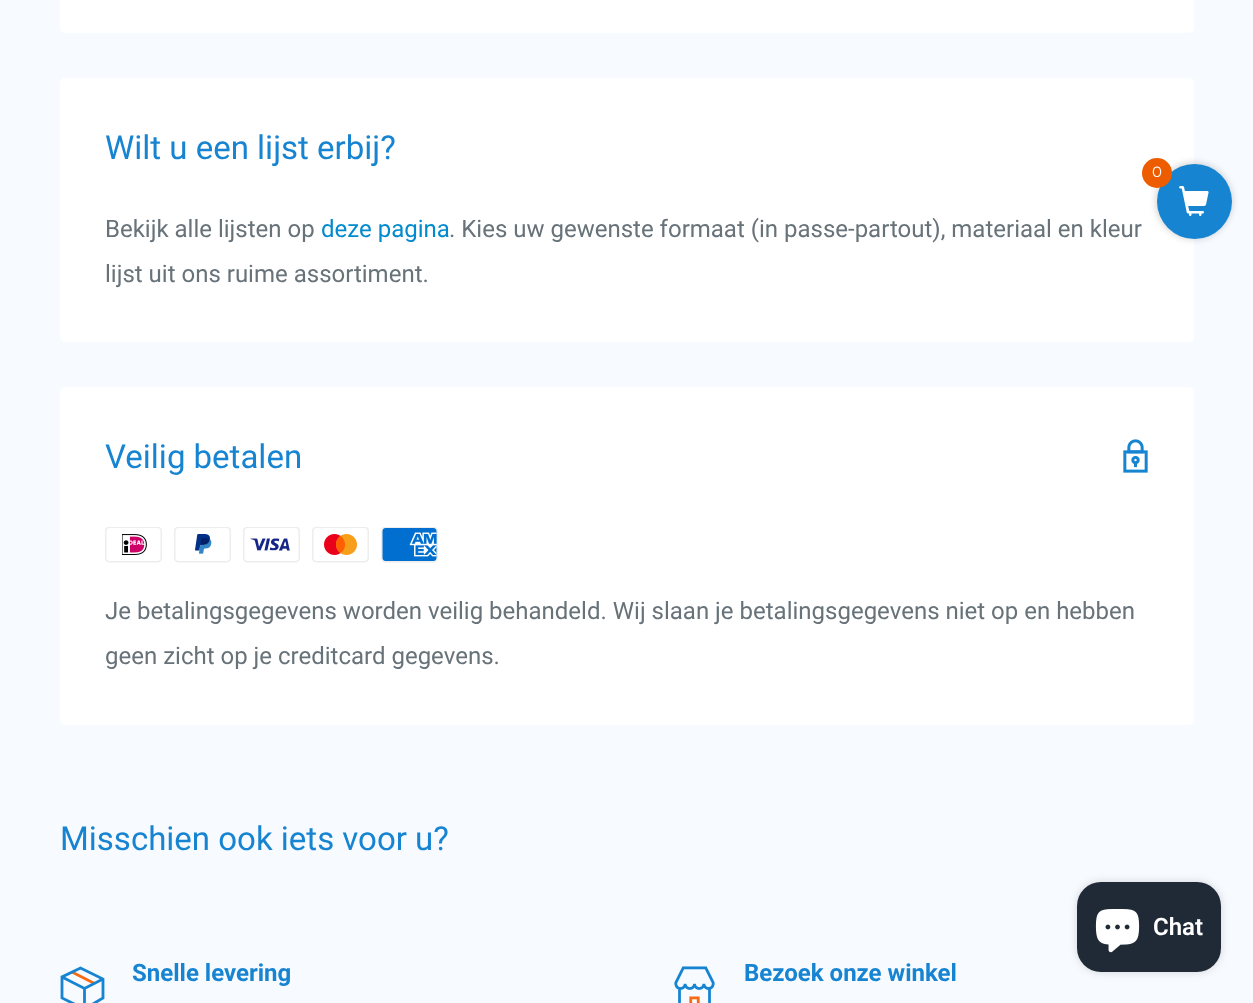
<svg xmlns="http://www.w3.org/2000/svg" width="1253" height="1003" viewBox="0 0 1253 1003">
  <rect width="100%" height="100%" fill="#f7faff"/>
  <rect x="60" y="-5" width="1134" height="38" rx="5" fill="#fff"/>
  <rect x="60" y="78" width="1134" height="264" rx="5" fill="#fff"/>
  <rect x="60" y="387" width="1134" height="338" rx="5" fill="#fff"/>
  <image x="1123" y="439" width="25" height="34" href="img/1.png"/>
  <image x="105" y="527" width="57" height="36" href="img/2.png"/>
  <image x="174" y="527" width="57" height="36" href="img/3.png"/>
  <image x="243" y="527" width="57" height="36" href="img/4.png"/>
  <image x="312" y="527" width="57" height="36" href="img/5.png"/>
  <image x="381" y="527" width="57" height="36" href="img/6.png"/>
  <rect x="1155" y="162" width="78" height="78" rx="39" fill="#03030326" filter="blur(3px)"/>
  <circle cx="1194.5" cy="201.5" r="37.5" fill="#1784d1"/>
  <circle cx="1157" cy="173" r="15" fill="#ee5c00"/>
  <image x="1179" y="186" width="30" height="30" href="img/7.png"/>
  <rect x="1077" y="882" width="144" height="90" rx="24" fill="#00000026" filter="blur(4px)"/>
  <rect x="1077" y="882" width="144" height="90" rx="24" fill="#202a36"/>
  <image x="1095" y="909" width="45" height="44" href="img/8.png"/>
  <path d="M72 972L94.5 983.5" fill="none" stroke="#f76b12" stroke-width="2.8"/>
  <path d="M103 979L84.5 988.5L62 977M84.5 988.5V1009" fill="none" stroke="#1784d1" stroke-width="2.8"/>
  <path d="M103 979V998L84.5 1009L62 998V977L80.5 968Z" fill="none" stroke="#1784d1" stroke-width="2.8" stroke-linecap="square"/>
  <image x="674" y="966" width="41" height="37" href="img/9.png"/>
  <text x="105" y="159" font-family="Roboto" font-size="33" fill="#1784d1">Wilt u een lijst erbij?</text>
  <text x="105" y="237" font-family="Roboto" font-size="24" fill="#677279">Bekijk alle lijsten op</text>
  <text x="321" y="237" font-family="Roboto" font-size="24" fill="#028ace">deze pagina</text>
  <g font-family="Roboto" font-size="24" fill="#677279">
    <text x="449" y="237">. Kies uw gewenste formaat (in passe-partout), materiaal en kleur</text>
    <text x="105" y="282">lijst uit ons ruime assortiment.</text>
  </g>
  <text x="105" y="468" font-family="Roboto" font-size="33" fill="#1784d1">Veilig betalen</text>
  <g font-family="Roboto" font-size="24" fill="#677279">
    <text x="105" y="619">Je betalingsgegevens worden veilig behandeld. Wij slaan je betalingsgegevens niet op en hebben</text>
    <text x="105" y="664">geen zicht op je creditcard gegevens.</text>
  </g>
  <text x="60" y="850" font-family="Roboto" font-size="33" fill="#1784d1">Misschien ook iets voor u?</text>
  <text x="1152" y="177" font-family="Montserrat" font-size="15" font-weight="100" fill="#fff">0</text>
  <text x="1153" y="935" font-family="Roboto" font-size="24" font-weight="600" fill="#fff">Chat</text>
  <g font-family="Roboto" font-size="24" font-weight="bold" fill="#1784d1">
    <text x="132" y="981">Snelle levering</text>
    <text x="744" y="981">Bezoek onze winkel</text>
  </g>
</svg>
